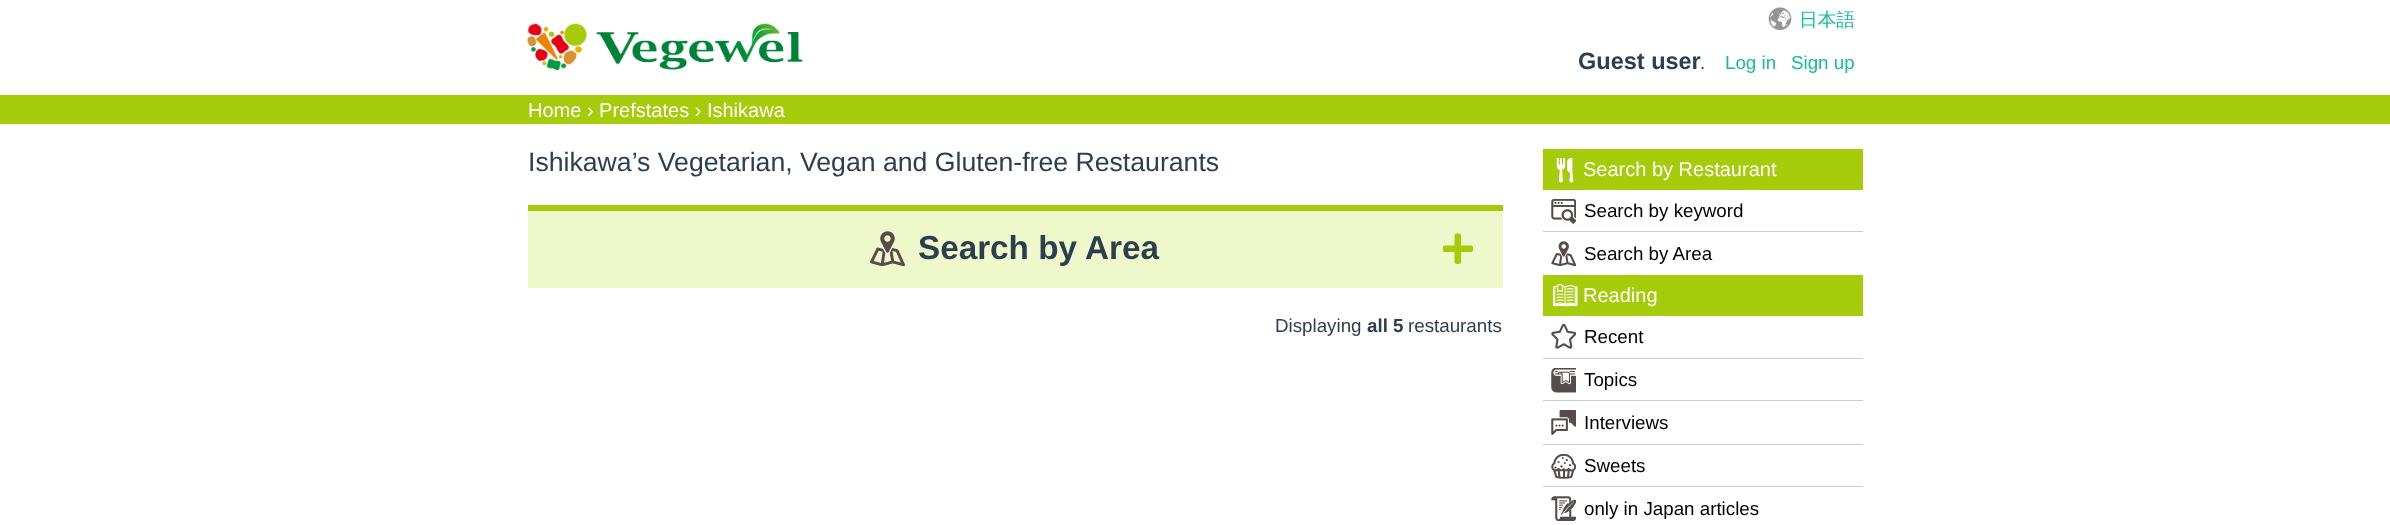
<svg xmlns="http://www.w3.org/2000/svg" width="2390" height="525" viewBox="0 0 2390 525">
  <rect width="100%" height="100%" fill="#fff"/>
  <image x="527" y="23" width="276" height="47" href="img/1.png"/>
  <image x="1768" y="7" width="24" height="23" href="img/2.png"/>
  <path d="M0 95h2390v29H0z" fill="#a5cb0b"/>
  <path d="M528 211h975v77H528z" fill="#eff8ca"/>
  <path d="M528 205h975v6H528z" fill="#a5cb0b"/>
  <image x="870" y="231" width="35" height="35" href="img/3.png"/>
  <image x="1443" y="233" width="30" height="31" href="img/4.png"/>
  <path d="M1543 149h320v41H1543z" fill="#a5cb0b"/>
  <image x="1556" y="158" width="18" height="25" href="img/5.png"/>
  <path d="M1543 231h320v1H1543z" fill="#ccc"/>
  <image x="1551" y="199" width="25" height="25" href="img/6.png"/>
  <image x="1551" y="241" width="25" height="25" href="img/7.png"/>
  <path d="M1543 275h320v41H1543z" fill="#a5cb0b"/>
  <image x="1553" y="283" width="25" height="24" href="img/8.png"/>
  <path d="M1543 358h320v1H1543z" fill="#ccc"/>
  <image x="1551" y="324" width="25" height="25" href="img/9.png"/>
  <path d="M1543 400h320v1H1543z" fill="#ccc"/>
  <image x="1551" y="368" width="25" height="25" href="img/10.png"/>
  <path d="M1543 444h320v1H1543z" fill="#ccc"/>
  <image x="1551" y="410" width="25" height="25" href="img/11.png"/>
  <path d="M1543 486h320v1H1543z" fill="#ccc"/>
  <image x="1551" y="454" width="25" height="25" href="img/12.png"/>
  <image x="1551" y="496" width="25" height="25" href="img/13.png"/>
  <text x="1799" y="26" font-family="WenQuanYi Zen Hei" font-size="18.75" font-weight="500" fill="#18bc9c">日本語</text>
  <text x="1578" y="69" font-family="Liberation Sans" font-size="23.5" font-weight="bold" fill="#2c3e50">Guest user</text>
  <text x="1700" y="69" font-family="Liberation Sans" font-size="18.75" fill="#2c3e50">.</text>
  <g font-family="Liberation Sans" font-size="18.75" fill="#18bc9c">
    <text x="1725" y="69">Log in</text>
    <text x="1791" y="69">Sign up</text>
  </g>
  <text x="528" y="117" font-family="Liberation Sans" font-size="20" fill="#fff">Home › Prefstates › Ishikawa</text>
  <text x="528" y="171" font-family="Liberation Sans" font-size="26.65" fill="#2c3e50">Ishikawa’s Vegetarian, Vegan and Gluten-free Restaurants</text>
  <text x="918" y="259" font-family="Liberation Sans" font-size="33.25" font-weight="bold" fill="#2c3e50">Search by Area</text>
  <text x="1275" y="332" font-family="Liberation Sans" font-size="18.75" fill="#2c3e50">Displaying</text>
  <text x="1367" y="332" font-family="Liberation Sans" font-size="18.75" font-weight="bold" fill="#2c3e50">all 5</text>
  <text x="1408" y="332" font-family="Liberation Sans" font-size="18.75" fill="#2c3e50">restaurants</text>
  <text x="1583" y="176" font-family="Liberation Sans" font-size="20" fill="#fff">Search by Restaurant</text>
  <g font-family="Liberation Sans" font-size="18.75" fill="#000">
    <text x="1584" y="217">Search by keyword</text>
    <text x="1584" y="260">Search by Area</text>
  </g>
  <text x="1583" y="302" font-family="Liberation Sans" font-size="20" fill="#fff">Reading</text>
  <g font-family="Liberation Sans" font-size="18.75" fill="#000">
    <text x="1584" y="343">Recent</text>
    <text x="1584" y="386">Topics</text>
    <text x="1584" y="429">Interviews</text>
    <text x="1584" y="472">Sweets</text>
    <text x="1584" y="515">only in Japan articles</text>
  </g>
</svg>
